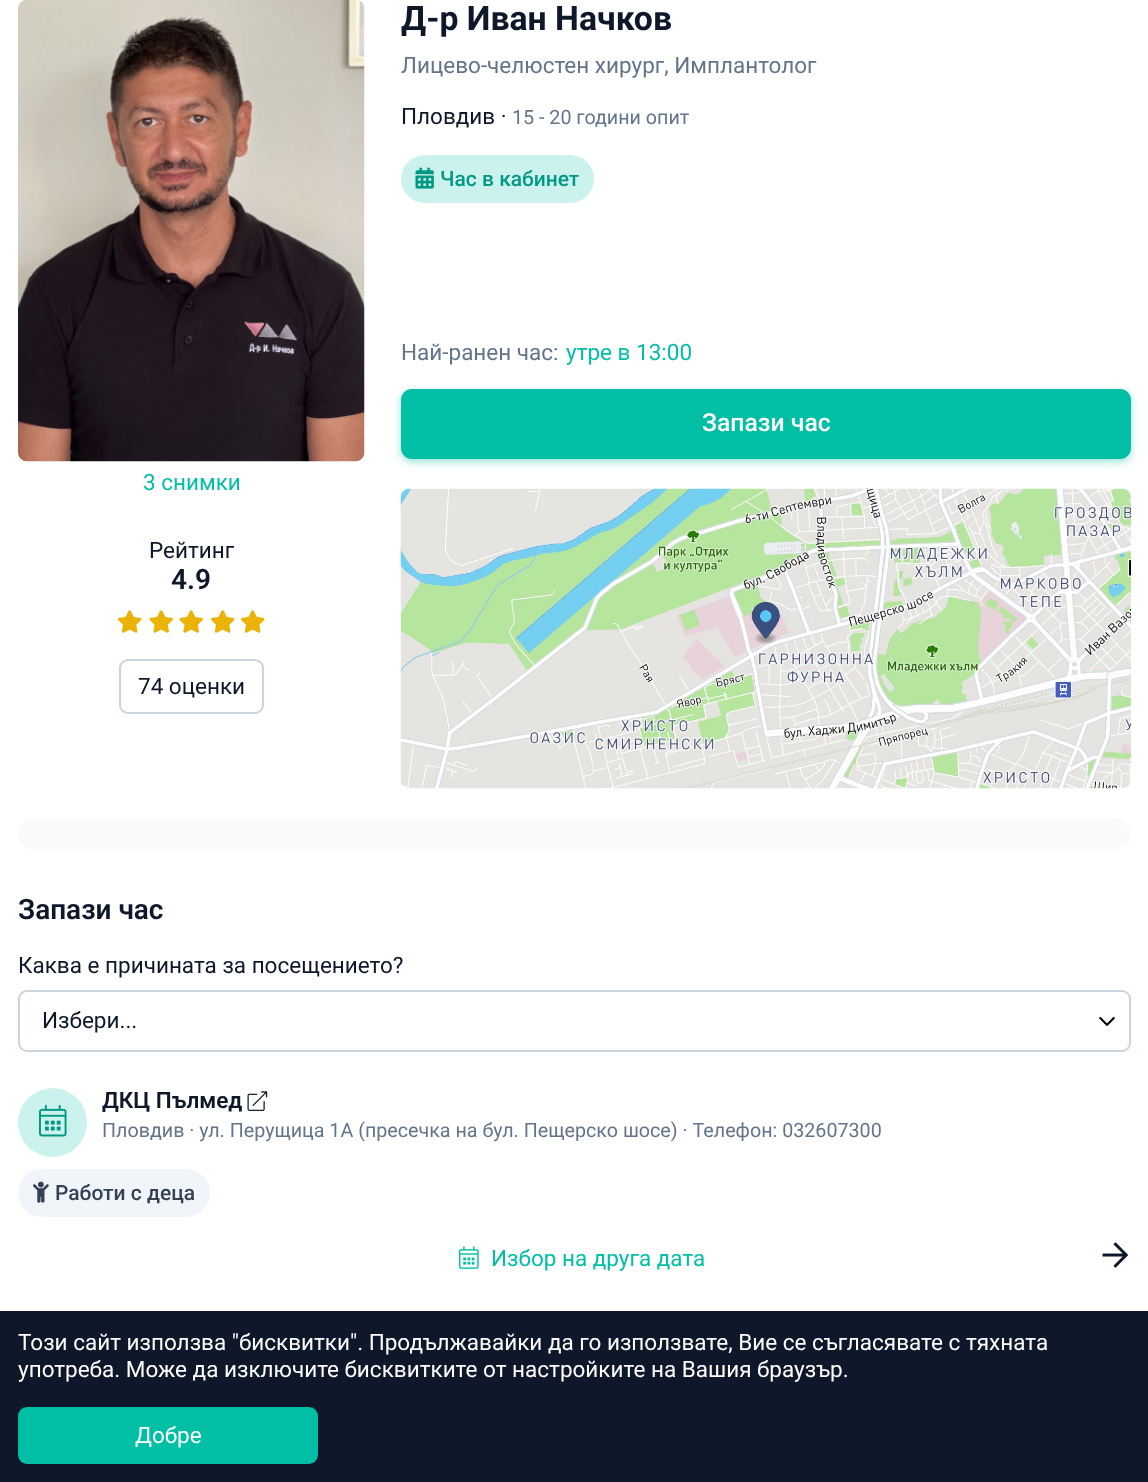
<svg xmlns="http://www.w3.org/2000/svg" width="1148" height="1482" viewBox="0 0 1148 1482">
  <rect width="100%" height="100%" fill="#fff"/>
  <rect x="401" y="155" width="193" height="48" rx="24" fill="#ccf2ed"/>
  <image x="415" y="167" width="19" height="22" href="img/1.png"/>
  <rect x="401" y="392" width="730" height="70" rx="11" fill="#01bfa566" filter="blur(4.5px)"/>
  <rect x="402" y="390" width="728" height="68" rx="10" fill="#01bfa5" stroke="#01bfa5" stroke-width="2"/>
  <image x="18" y="0" width="347" height="462" href="img/2.png"/>
  <image x="117" y="610" width="25" height="23" href="img/3.png"/>
  <image x="149" y="610" width="24" height="23" href="img/4.png"/>
  <image x="179" y="610" width="24" height="23" href="img/4.png"/>
  <image x="210" y="610" width="25" height="23" href="img/3.png"/>
  <image x="240" y="610" width="25" height="23" href="img/3.png"/>
  <rect x="120" y="660" width="143" height="53" rx="8" fill="none" stroke="#cbd5e0" stroke-width="2"/>
  <image x="400" y="488" width="731" height="301" href="img/5.png"/>
  <rect x="18" y="819" width="1113" height="30" rx="15" fill="#fafafa"/>
  <image x="1099" y="1017" width="16" height="9" href="img/6.png"/>
  <rect x="19" y="991" width="1111" height="60" rx="8" fill="none" stroke="#cbd5e0" stroke-width="2"/>
  <circle cx="52.5" cy="1122.5" r="34.5" fill="#ccf2ed"/>
  <image x="39" y="1104" width="28" height="33" href="img/7.png"/>
  <image x="247" y="1091" width="21" height="20" href="img/8.png"/>
  <rect x="18" y="1169" width="192" height="48" rx="24" fill="#f1f5f9"/>
  <image x="33" y="1181" width="16" height="22" href="img/9.png"/>
  <image x="459" y="1246" width="20" height="23" href="img/10.png"/>
  <image x="1102" y="1242" width="26" height="26" href="img/11.png"/>
  <path d="M0 1311h1148v171H0z" fill="#0f172a"/>
  <rect x="18" y="1407" width="300" height="57" rx="9" fill="#01bfa5"/>
  <text x="401" y="30" font-family="Roboto" font-size="33.75" font-weight="bold" fill="#0f172a">Д-р Иван Начков</text>
  <text x="401" y="73" font-family="Roboto" font-size="22.5" fill="#64748b">Лицево-челюстен хирург, Имплантолог</text>
  <text x="401" y="124" font-family="Roboto" font-size="22.5" fill="#0f172a">Пловдив ·</text>
  <text x="512" y="124" font-family="Roboto" font-size="19.7" fill="#64748b">15 - 20 години опит</text>
  <text x="440" y="186" font-family="Roboto" font-size="21" font-weight="500" fill="#019984">Час в кабинет</text>
  <text x="401" y="360" font-family="Roboto" font-size="22.5" fill="#64748b">Най-ранен час:</text>
  <text x="566" y="360" font-family="Roboto" font-size="22.5" fill="#01bfa5">утре в 13:00</text>
  <text x="702" y="431" font-family="Roboto" font-size="24.75" font-weight="500" fill="#fff">Запази час</text>
  <text x="143" y="490" font-family="Roboto" font-size="22.5" fill="#01bfa5">3 снимки</text>
  <text x="149" y="558" font-family="Roboto" font-size="22.5" fill="#0f172a">Рейтинг</text>
  <text x="171" y="589" font-family="Roboto" font-size="28" font-weight="600" fill="#0f172a">4.9</text>
  <text x="138" y="694" font-family="Roboto" font-size="22.5" fill="#0f172a">74 оценки</text>
  <text x="18" y="919" font-family="Roboto" font-size="28" font-weight="600" fill="#0f172a">Запази час</text>
  <g font-family="Roboto" font-size="22.5" fill="#0f172a">
    <text x="18" y="973">Каква е причината за посещението?</text>
    <text x="42" y="1028">Избери...</text>
  </g>
  <text x="102" y="1108" font-family="Roboto" font-size="22.5" font-weight="600" fill="#0f172a">ДКЦ Пълмед</text>
  <text x="102" y="1137" font-family="Roboto" font-size="19.7" fill="#64748b">Пловдив · ул. Перущица 1A (пресечка на бул. Пещерско шосе) · Телефон: 032607300</text>
  <text x="55" y="1200" font-family="Roboto" font-size="21" font-weight="500" fill="#334155">Работи с деца</text>
  <text x="491" y="1266" font-family="Roboto" font-size="22.5" fill="#01bfa5">Избор на друга дата</text>
  <g font-family="Roboto" font-size="22.5" fill="#fff">
    <text x="18" y="1350">Този сайт използва "бисквитки". Продължавайки да го използвате, Вие се съгласявате с тяхната</text>
    <text x="18" y="1377">употреба. Може да изключите бисквитките от настройките на Вашия браузър.</text>
    <text x="135" y="1443">Добре</text>
  </g>
</svg>
